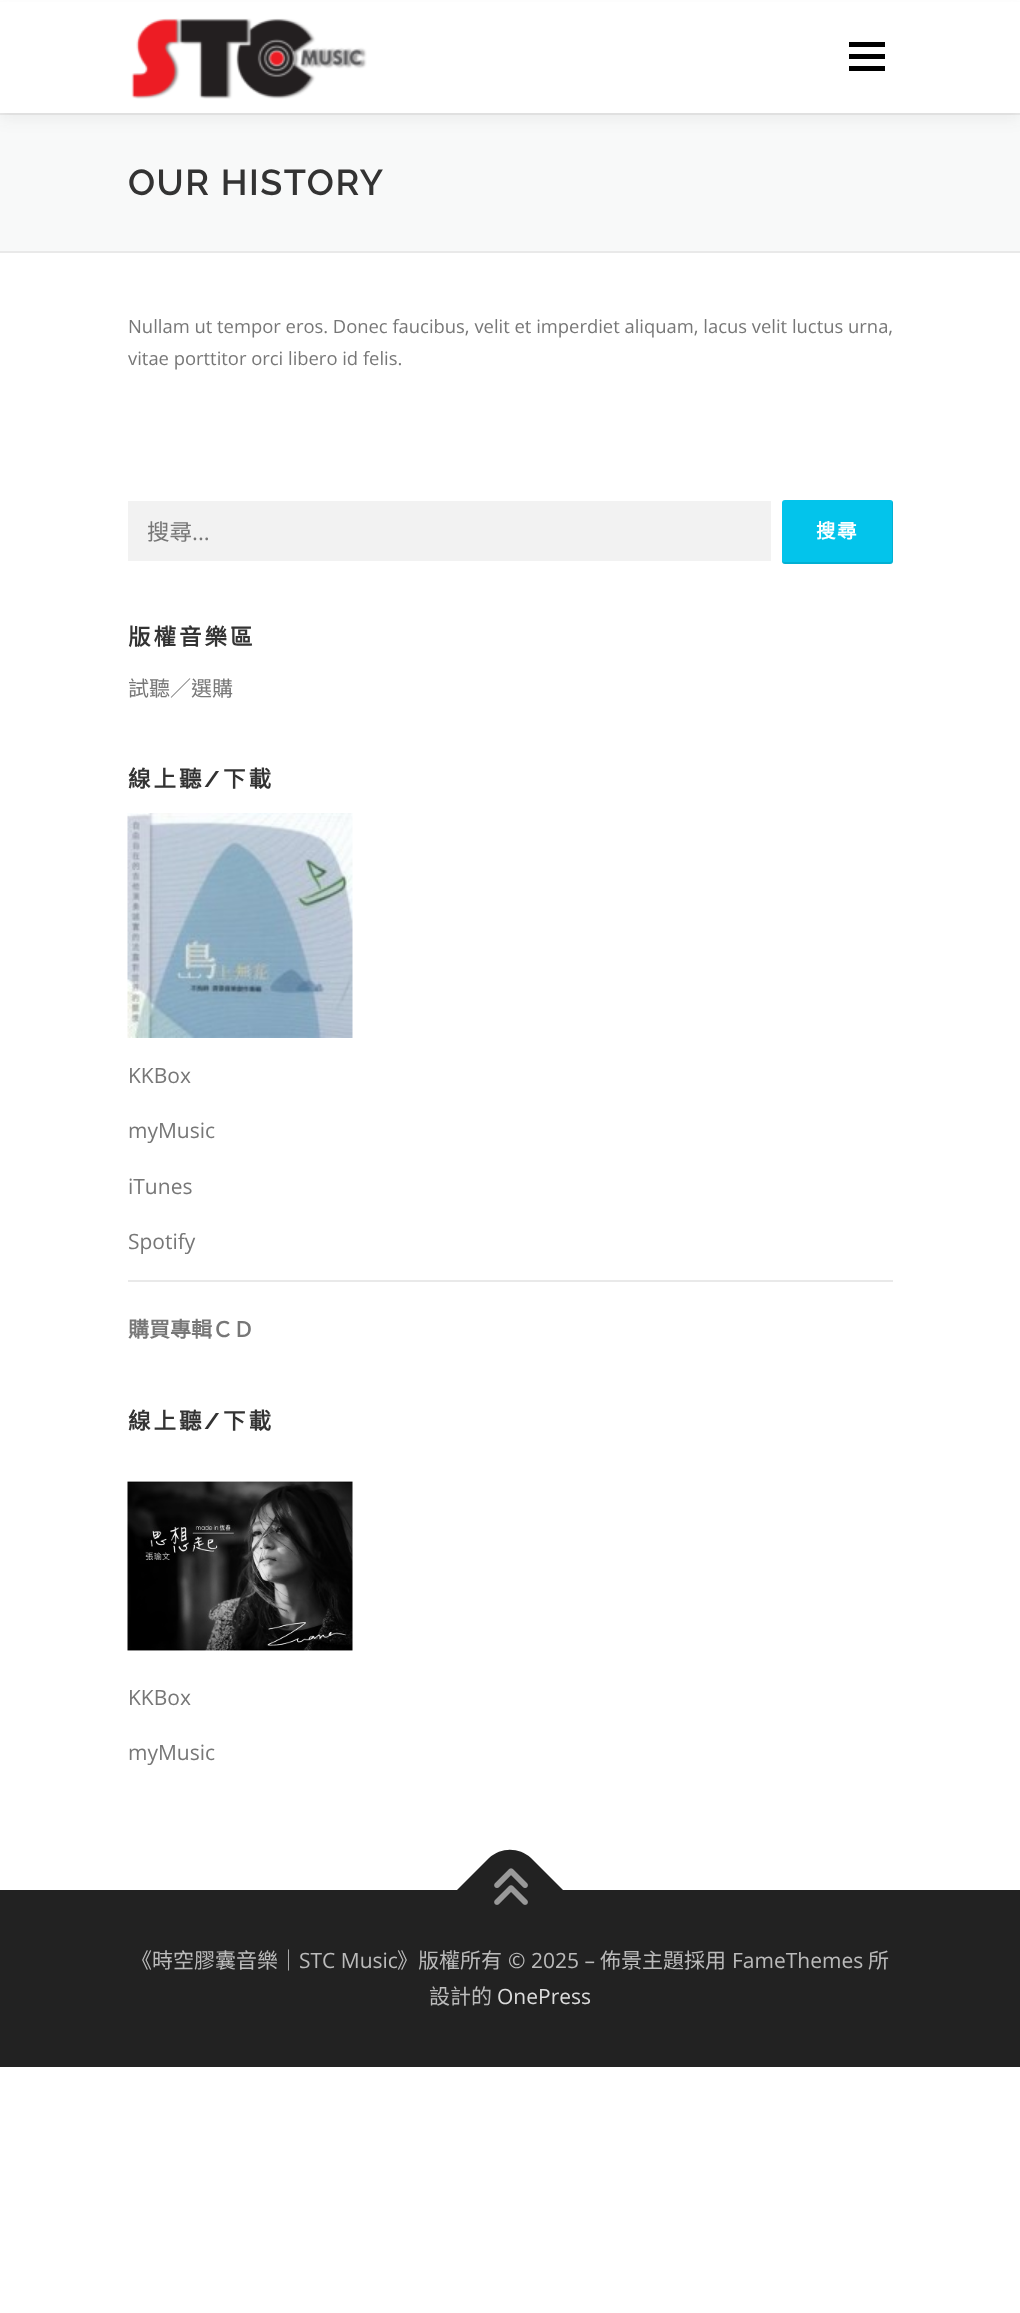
<svg xmlns="http://www.w3.org/2000/svg" width="1020" height="2313" viewBox="0 0 1020 2313">
  <rect width="100%" height="100%" fill="#fff"/>
  <path d="M0 115h1020v136H0z" fill="#f8f9f9"/>
  <path d="M0 113h1020v2H0z" fill="#e9e9e9"/>
  <path d="M0 8h1020v112H0z" fill="#3232320f" filter="blur(7.5px)"/>
  <path d="M0 2h1020v111H0z" fill="#fff"/>
  <image x="131" y="18" width="236" height="81" href="img/1.png"/>
  <path d="M849 54h36v5H849z" fill="#000"/>
  <path d="M849 42h36v5H849z" fill="#000"/>
  <path d="M849 66h36v5H849z" fill="#000"/>
  <path d="M0 251h1020v2H0z" fill="#e9e9e9"/>
  <path d="M128 501h643v60H128z" fill="#f2f2f2"/>
  <rect x="782" y="500" width="111" height="64" rx="3" fill="#03c4eb"/>
  <path d="M782 560V561C782 563 783 564 785 564H890C892 564 893 563 893 561V503C893 502 893 501 892 501V560C892 561 891 562 890 562H784C783 562 782 561 782 560Z" fill="#0000001a"/>
  <image x="127" y="813" width="226" height="225" href="img/2.png"/>
  <path d="M128 1280h765v2H128z" fill="#e9e9e9"/>
  <image x="127" y="1481" width="226" height="170" href="img/3.png"/>
  <path d="M0 1890h1020v177H0z" fill="#222"/>
  <path d="M457 1890L489 1858C501 1847 519 1847 531 1858L563 1890L510 1943Z" fill="#222"/>
  <image x="494" y="1868" width="34" height="37" href="img/4.png"/>
  <text x="128" y="195" font-family="Raleway" font-size="36" font-weight="600" letter-spacing="1.5" fill="#333">OUR HISTORY</text>
  <g font-family="Open Sans" font-size="18.4" fill="#777">
    <text x="128" y="333">Nullam ut tempor eros. Donec faucibus, velit et imperdiet aliquam, lacus velit luctus urna,</text>
    <text x="128" y="365">vitae porttitor orci libero id felis.</text>
  </g>
  <text x="147" y="540" font-family="Noto Sans CJK TC" font-size="22.5" fill="#777">搜尋</text>
  <text x="192" y="540" font-family="Open Sans" font-size="22.5" fill="#777">...</text>
  <text x="816" y="538" font-family="Noto Sans CJK TC" font-size="19.5" font-weight="bold" letter-spacing="1.5" fill="#fff">搜尋</text>
  <text x="128" y="645" font-family="Noto Sans CJK TC" font-size="22.5" font-weight="bold" letter-spacing="3" fill="#333">版權音樂區</text>
  <text x="128" y="696" font-family="Noto Sans CJK TC" font-size="21" fill="#777">試聽／選購</text>
  <text x="128" y="787" font-family="Noto Sans CJK TC" font-size="22.5" font-weight="bold" letter-spacing="3" fill="#333">線上聽</text>
  <text x="204" y="787" font-family="Raleway" font-size="22.5" font-weight="bold" letter-spacing="3" fill="#333">/</text>
  <text x="223" y="787" font-family="Noto Sans CJK TC" font-size="22.5" font-weight="bold" letter-spacing="3" fill="#333">下載</text>
  <g font-family="Open Sans" font-size="21" fill="#777">
    <text x="128" y="1083">KKBox</text>
    <text x="128" y="1138">myMusic</text>
    <text x="128" y="1194">iTunes</text>
    <text x="128" y="1249">Spotify</text>
  </g>
  <text x="128" y="1337" font-family="Noto Sans CJK TC" font-size="21" font-weight="bold" fill="#777">購買專輯ＣＤ</text>
  <text x="128" y="1429" font-family="Noto Sans CJK TC" font-size="22.5" font-weight="bold" letter-spacing="3" fill="#333">線上聽</text>
  <text x="204" y="1429" font-family="Raleway" font-size="22.5" font-weight="bold" letter-spacing="3" fill="#333">/</text>
  <text x="223" y="1429" font-family="Noto Sans CJK TC" font-size="22.5" font-weight="bold" letter-spacing="3" fill="#333">下載</text>
  <g font-family="Open Sans" font-size="21" fill="#777">
    <text x="128" y="1705">KKBox</text>
    <text x="128" y="1760">myMusic</text>
  </g>
  <text x="131" y="1968" font-family="Noto Sans CJK TC" font-size="21" fill="#bbb">《時空膠囊音樂｜</text>
  <text x="299" y="1968" font-family="Open Sans" font-size="21" fill="#bbb">STC Music</text>
  <text x="397" y="1968" font-family="Noto Sans CJK TC" font-size="21" fill="#bbb">》版權所有</text>
  <text x="508" y="1968" font-family="Open Sans" font-size="21" fill="#bbb">© 2025 –</text>
  <text x="600" y="1968" font-family="Noto Sans CJK TC" font-size="21" fill="#bbb">佈景主題採用</text>
  <text x="732" y="1968" font-family="Open Sans" font-size="21" fill="#bbb">FameThemes</text>
  <g font-family="Noto Sans CJK TC" font-size="21" fill="#bbb">
    <text x="868" y="1968">所</text>
    <text x="429" y="2004">設計的</text>
  </g>
  <text x="497" y="2004" font-family="Open Sans" font-size="21" fill="#ddd">OnePress</text>
</svg>
